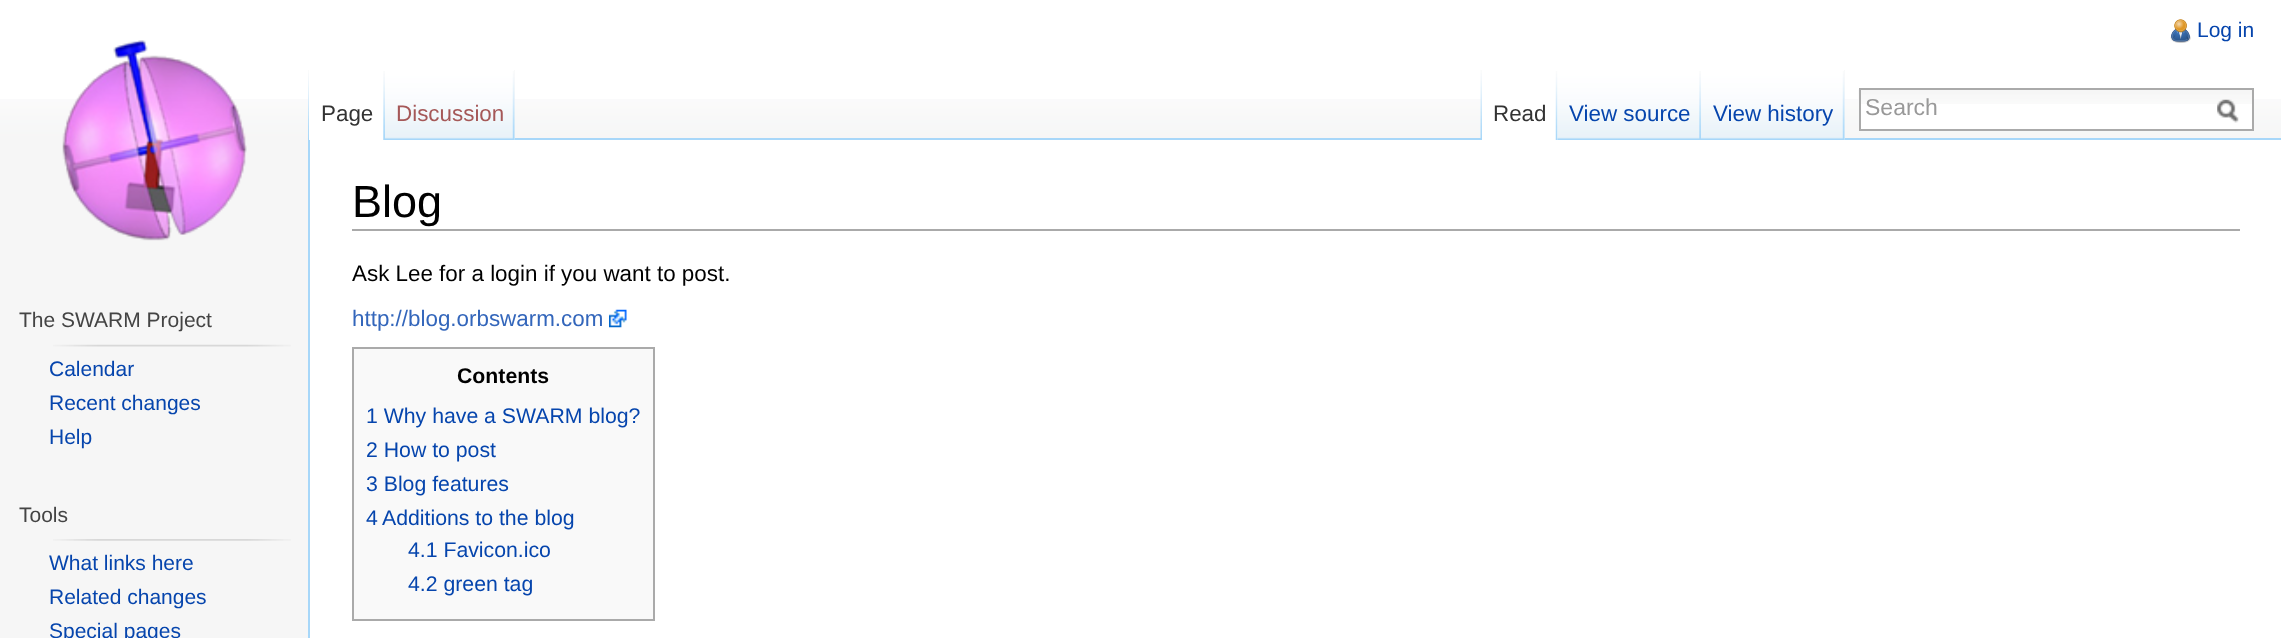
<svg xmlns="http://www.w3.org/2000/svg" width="2281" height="638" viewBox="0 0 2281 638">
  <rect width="100%" height="100%" fill="#f6f6f6"/>
  <path d="M0 0h2281v99H0z" fill="#fff"/>
  <image x="0" y="99" width="2281" height="41" href="img/1.png"/>
  <image x="2170" y="19" width="21" height="24" href="img/2.png"/>
  <image x="308" y="70" width="1" height="68" href="img/3.png"/>
  <path d="M308 138h2v500H308z" fill="#a7d7f9"/>
  <path d="M309 99h76v41H309z" fill="#fff"/>
  <image x="383" y="71" width="2" height="69" href="img/4.png"/>
  <path d="M514 70h1v70H514z" fill="#f3f3f3"/>
  <image x="385" y="70" width="130" height="70" href="img/5.png"/>
  <image x="512" y="71" width="3" height="69" href="img/6.png"/>
  <image x="1480" y="70" width="2" height="68" href="img/7.png"/>
  <path d="M515 138h1766v2H515z" fill="#a7d7f9"/>
  <path d="M1482 99h76v41H1482z" fill="#fff"/>
  <image x="1555" y="71" width="3" height="69" href="img/8.png"/>
  <image x="1557" y="70" width="144" height="70" href="img/9.png"/>
  <image x="1699" y="71" width="2" height="68" href="img/10.png"/>
  <path d="M1844 70h1v70H1844z" fill="#f3f3f3"/>
  <image x="1701" y="70" width="144" height="70" href="img/11.png"/>
  <image x="1842" y="71" width="3" height="69" href="img/6.png"/>
  <path d="M1861 104h391v25H1861z" fill="#fff"/>
  <image x="1858" y="89" width="394" height="15" href="img/12.png"/>
  <path d="M1860 89h393v41H1860z" fill="none" stroke="#aaa" stroke-width="2"/>
  <image x="2217" y="99" width="22" height="24" href="img/13.png"/>
  <image x="62" y="40" width="185" height="201" href="img/14.png"/>
  <image x="53" y="344" width="238" height="3" href="img/15.png"/>
  <image x="53" y="539" width="238" height="2" href="img/16.png"/>
  <path d="M310 140h1971v498H310z" fill="#fff"/>
  <path d="M352 229h1888v2H352z" fill="#aaa"/>
  <image x="609" y="309" width="18" height="19" href="img/17.png"/>
  <path d="M353 348h301v272H353z" fill="#f9f9f9" stroke="#aaa" stroke-width="2"/>
  <text x="2197" y="37" font-family="Liberation Sans" font-size="21" fill="#0645ad">Log in</text>
  <text x="321" y="121" font-family="Liberation Sans" font-size="22.4" fill="#333">Page</text>
  <text x="396" y="121" font-family="Liberation Sans" font-size="22.4" fill="#a55858">Discussion</text>
  <text x="1493" y="121" font-family="Liberation Sans" font-size="22.4" fill="#333">Read</text>
  <g font-family="Liberation Sans" font-size="22.4" fill="#0645ad">
    <text x="1569" y="121">View source</text>
    <text x="1713" y="121">View history</text>
  </g>
  <text x="1865" y="115" font-family="Liberation Sans" font-size="23" fill="#999">Search</text>
  <text x="19" y="327" font-family="Liberation Sans" font-size="21" fill="#444">The SWARM Project</text>
  <g font-family="Liberation Sans" font-size="21" fill="#0645ad">
    <text x="49" y="376">Calendar</text>
    <text x="49" y="410">Recent changes</text>
    <text x="49" y="444">Help</text>
  </g>
  <text x="19" y="522" font-family="Liberation Sans" font-size="21" fill="#444">Tools</text>
  <g font-family="Liberation Sans" font-size="21" fill="#0645ad">
    <text x="49" y="570">What links here</text>
    <text x="49" y="604">Related changes</text>
    <text x="49" y="638">Special pages</text>
  </g>
  <text x="352" y="217" font-family="Liberation Sans" font-size="45" fill="#000">Blog</text>
  <text x="352" y="281" font-family="Liberation Sans" font-size="22.4" fill="#000">Ask Lee for a login if you want to post.</text>
  <text x="352" y="326" font-family="Liberation Sans" font-size="22.4" fill="#36b">http://blog.orbswarm.com</text>
  <text x="457" y="383" font-family="Liberation Sans" font-size="21.25" font-weight="bold" fill="#000">Contents</text>
  <g font-family="Liberation Sans" font-size="21.25" fill="#0645ad">
    <text x="366" y="423">1 Why have a SWARM blog?</text>
    <text x="366" y="457">2 How to post</text>
    <text x="366" y="491">3 Blog features</text>
    <text x="366" y="525">4</text>
    <text x="382" y="525">Additions to the blog</text>
    <text x="408" y="557">4.1 Favicon.ico</text>
    <text x="408" y="591">4.2 green tag</text>
  </g>
</svg>
